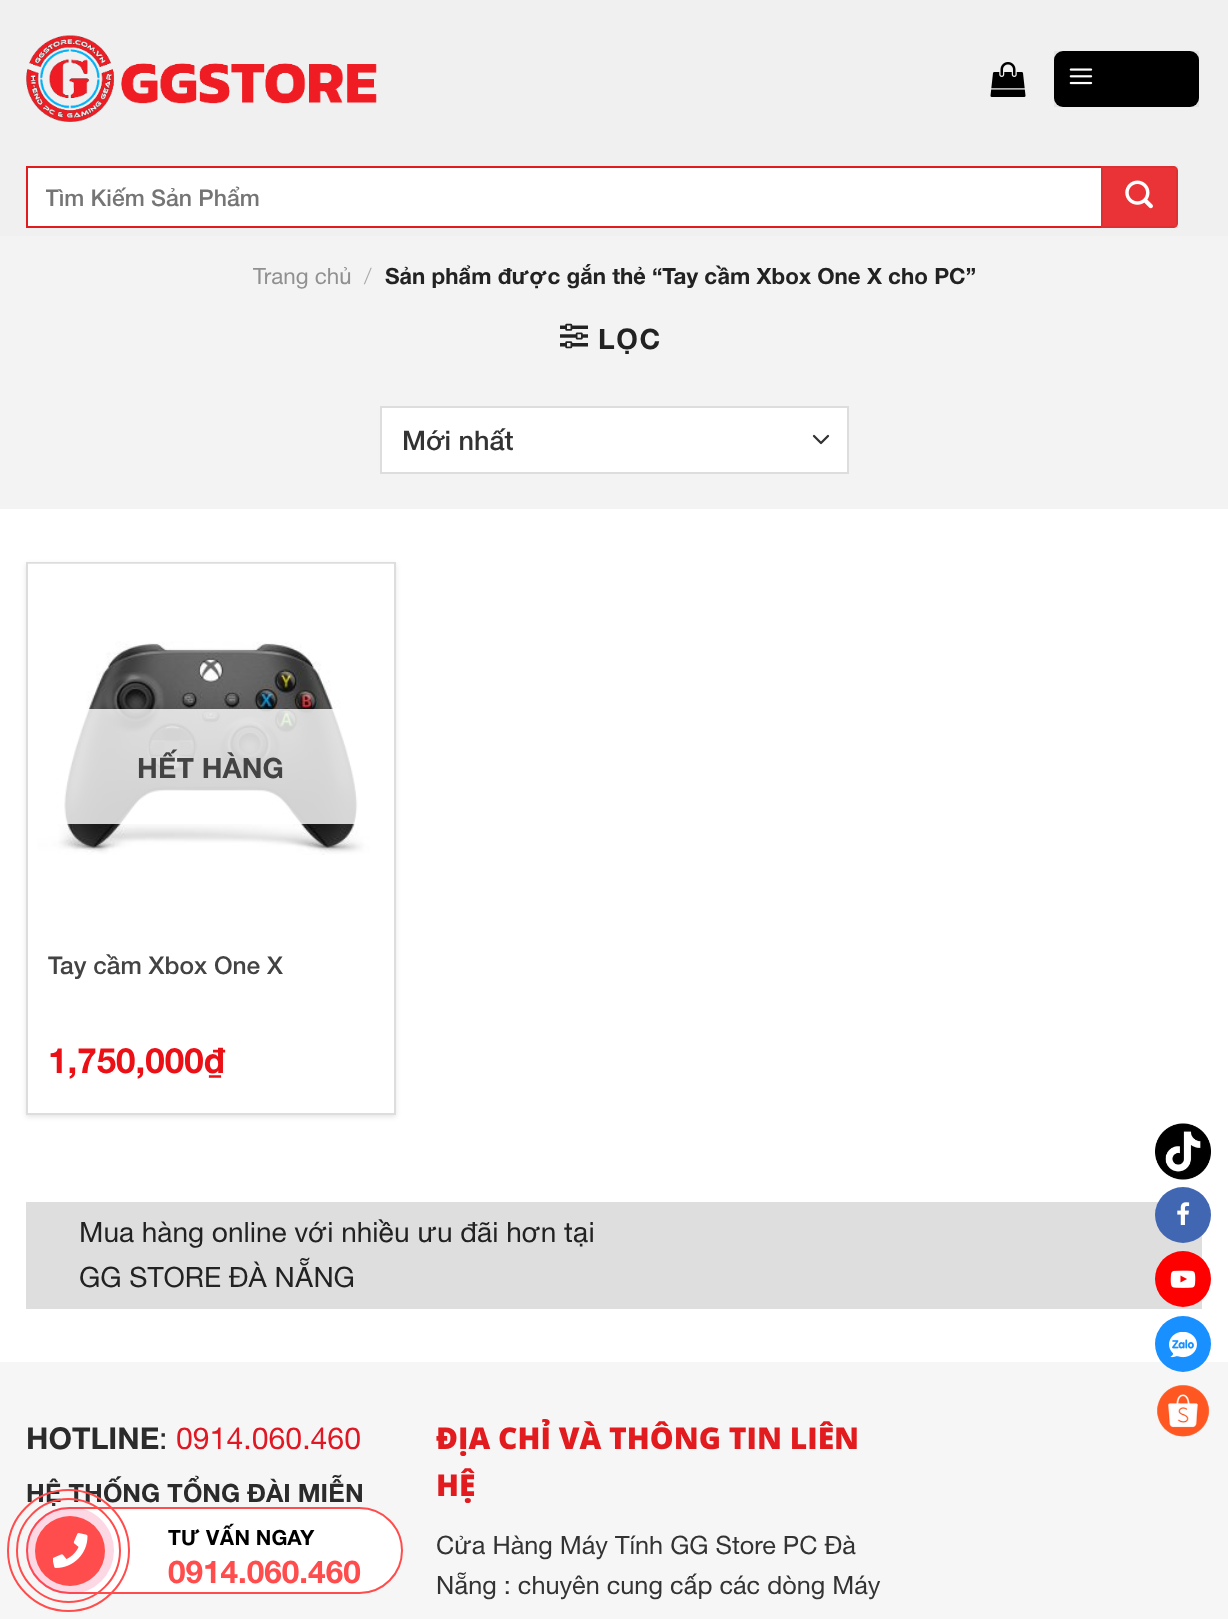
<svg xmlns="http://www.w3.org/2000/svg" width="1228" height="1619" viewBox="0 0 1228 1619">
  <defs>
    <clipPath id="clip1"><path d="M46 184h1053v28H46z"/></clipPath>
  </defs>
  <rect width="100%" height="100%" fill="#fff"/>
  <path d="M0 0h1228v236H0z" fill="#f1f0f1"/>
  <image x="26" y="35" width="351" height="87" href="img/1.png"/>
  <image x="990" y="62" width="36" height="35" href="img/2.png"/>
  <rect x="1054" y="51" width="145" height="56" rx="9" fill="#000"/>
  <path d="M1055 52h143v54H1055z" fill="none" stroke="#0000000d" stroke-width="2"/>
  <image x="1069" y="68" width="24" height="17" href="img/3.png"/>
  <path d="M28 168h1073v58H28z" fill="#fff"/>
  <path d="M27 167h1097v60H27z" fill="none" stroke="#e11b1e" stroke-width="2"/>
  <path d="M1101 166H1173C1176 166 1178 168 1178 171V223C1178 226 1176 228 1173 228H1101Z" fill="#e93336"/>
  <path d="M1102 167h75v60H1102z" fill="none" stroke="#0000000d" stroke-width="2"/>
  <image x="1125" y="180" width="28" height="29" href="img/4.png"/>
  <path d="M0 236h1228v273H0z" fill="#f3f3f3"/>
  <image x="560" y="323" width="28" height="26" href="img/5.png"/>
  <path d="M382 408h465v64H382z" fill="#fff"/>
  <path d="M814 436L821 443L828 436" fill="none" stroke="#333" stroke-width="2.3" stroke-linecap="round" stroke-linejoin="round"/>
  <path d="M381 407h467v66H381z" fill="none" stroke="#ddd" stroke-width="2"/>
  <path d="M26 564h370v553H26z" fill="#0000001a" filter="blur(2.5px)"/>
  <path d="M27 563h368v551H27z" fill="#fff" stroke="#ddd" stroke-width="2"/>
  <image x="28" y="563" width="366" height="292" href="img/6.png"/>
  <path d="M58 709h302v115H58z" fill="#ffffffcf"/>
  <path d="M26 1202h1176v107H26z" fill="#dedede"/>
  <path d="M0 1362h1228v257H0z" fill="#f6f6f6"/>
  <image x="1155" y="1123" width="56" height="57" href="img/7.png"/>
  <circle cx="1183" cy="1215" r="28" fill="#4267b2"/>
  <image x="1177" y="1202" width="13" height="23" href="img/8.png"/>
  <circle cx="1183" cy="1279" r="28" fill="#f00"/>
  <image x="1170" y="1270" width="26" height="18" href="img/9.png"/>
  <circle cx="1183" cy="1344" r="28" fill="#1890ff"/>
  <image x="1169" y="1332" width="28" height="26" href="img/10.png"/>
  <image x="1157" y="1385" width="53" height="52" href="img/11.png"/>
  <rect x="27" y="1508" width="375" height="85" rx="42.5" fill="#fff" stroke="#ff4c4c" stroke-width="2"/>
  <rect x="26" y="1507" width="88" height="87" rx="43.5" fill="#f23b7933"/>
  <g clip-path="url(#clip1)">
    <text x="45" y="206" font-family="Helvetica Neue" font-size="23" font-weight="500" fill="#757575">Tìm Kiếm Sản Phẩm</text>
  </g>
  <text x="253" y="284" font-family="Helvetica Neue" font-size="22.4" fill="#909090">Trang chủ</text>
  <text x="364" y="284" font-family="Helvetica Neue" font-size="22.4" font-weight="300" fill="#aaa">/</text>
  <text x="385" y="284" font-family="Helvetica Neue" font-size="22.4" font-weight="bold" fill="#222">Sản phẩm được gắn thẻ “Tay cầm Xbox One X cho PC”</text>
  <text x="598" y="349" font-family="Helvetica Neue" font-size="28" font-weight="bold" letter-spacing="1.5" fill="#222">LỌC</text>
  <text x="402" y="450" font-family="Helvetica Neue" font-size="27" font-weight="500" fill="#333">Mới nhất</text>
  <text x="137" y="778" font-family="Helvetica Neue" font-size="28" font-weight="bold" fill="#434343">HẾT HÀNG</text>
  <text x="48" y="974" font-family="Helvetica Neue" font-size="24.5" font-weight="500" fill="#434343">Tay cầm Xbox One X</text>
  <text x="48" y="1073" font-family="Helvetica Neue" font-size="35" font-weight="bold" fill="#eb0f16">1,750,000₫</text>
  <g font-family="Helvetica Neue" font-size="28" fill="#222">
    <text x="79" y="1242">Mua hàng online với nhiều ưu đãi hơn tại</text>
    <text x="79" y="1287">GG STORE ĐÀ NẴNG</text>
  </g>
  <text x="26" y="1449" font-family="Helvetica Neue" font-size="30.25" font-weight="bold" fill="#2b2b2b">HOTLINE</text>
  <text x="159" y="1449" font-family="Helvetica Neue" font-size="30.25" fill="#2b2b2b">:</text>
  <text x="176" y="1449" font-family="Helvetica Neue" font-size="30.25" fill="#df1824">0914.060.460</text>
  <text x="26" y="1502" font-family="Helvetica Neue" font-size="25.25" font-weight="bold" fill="#2b2b2b">HỆ THỐNG TỔNG ĐÀI MIỄN</text>
  <g font-family="Open Sans" font-size="30" font-weight="800" fill="#e11b1e">
    <text x="436" y="1449">ĐỊA CHỈ VÀ THÔNG TIN LIÊN</text>
    <text x="436" y="1496">HỆ</text>
  </g>
  <g font-family="Helvetica Neue" font-size="25.25" fill="#333">
    <text x="436" y="1554">Cửa Hàng Máy Tính GG Store PC Đà</text>
    <text x="436" y="1594">Nẵng : chuyên cung cấp các dòng Máy</text>
  </g>
  <circle cx="68.5" cy="1550.5" r="60.5" fill="none" stroke="#ff4c4c" stroke-width="2"/>
  <circle cx="68.5" cy="1550.5" r="51.5" fill="none" stroke="#ff4c4c" stroke-width="2"/>
  <circle cx="70" cy="1551" r="35" fill="#ff4c4c"/>
  <image x="53" y="1533" width="35" height="35" href="img/12.png"/>
  <text x="168" y="1545" font-family="Helvetica Neue" font-size="21" font-weight="bold" fill="#000">TƯ VẤN NGAY</text>
  <text x="168" y="1583" font-family="Helvetica Neue" font-size="31.5" font-weight="bold" fill="#ff4c4c">0914.060.460</text>
</svg>
